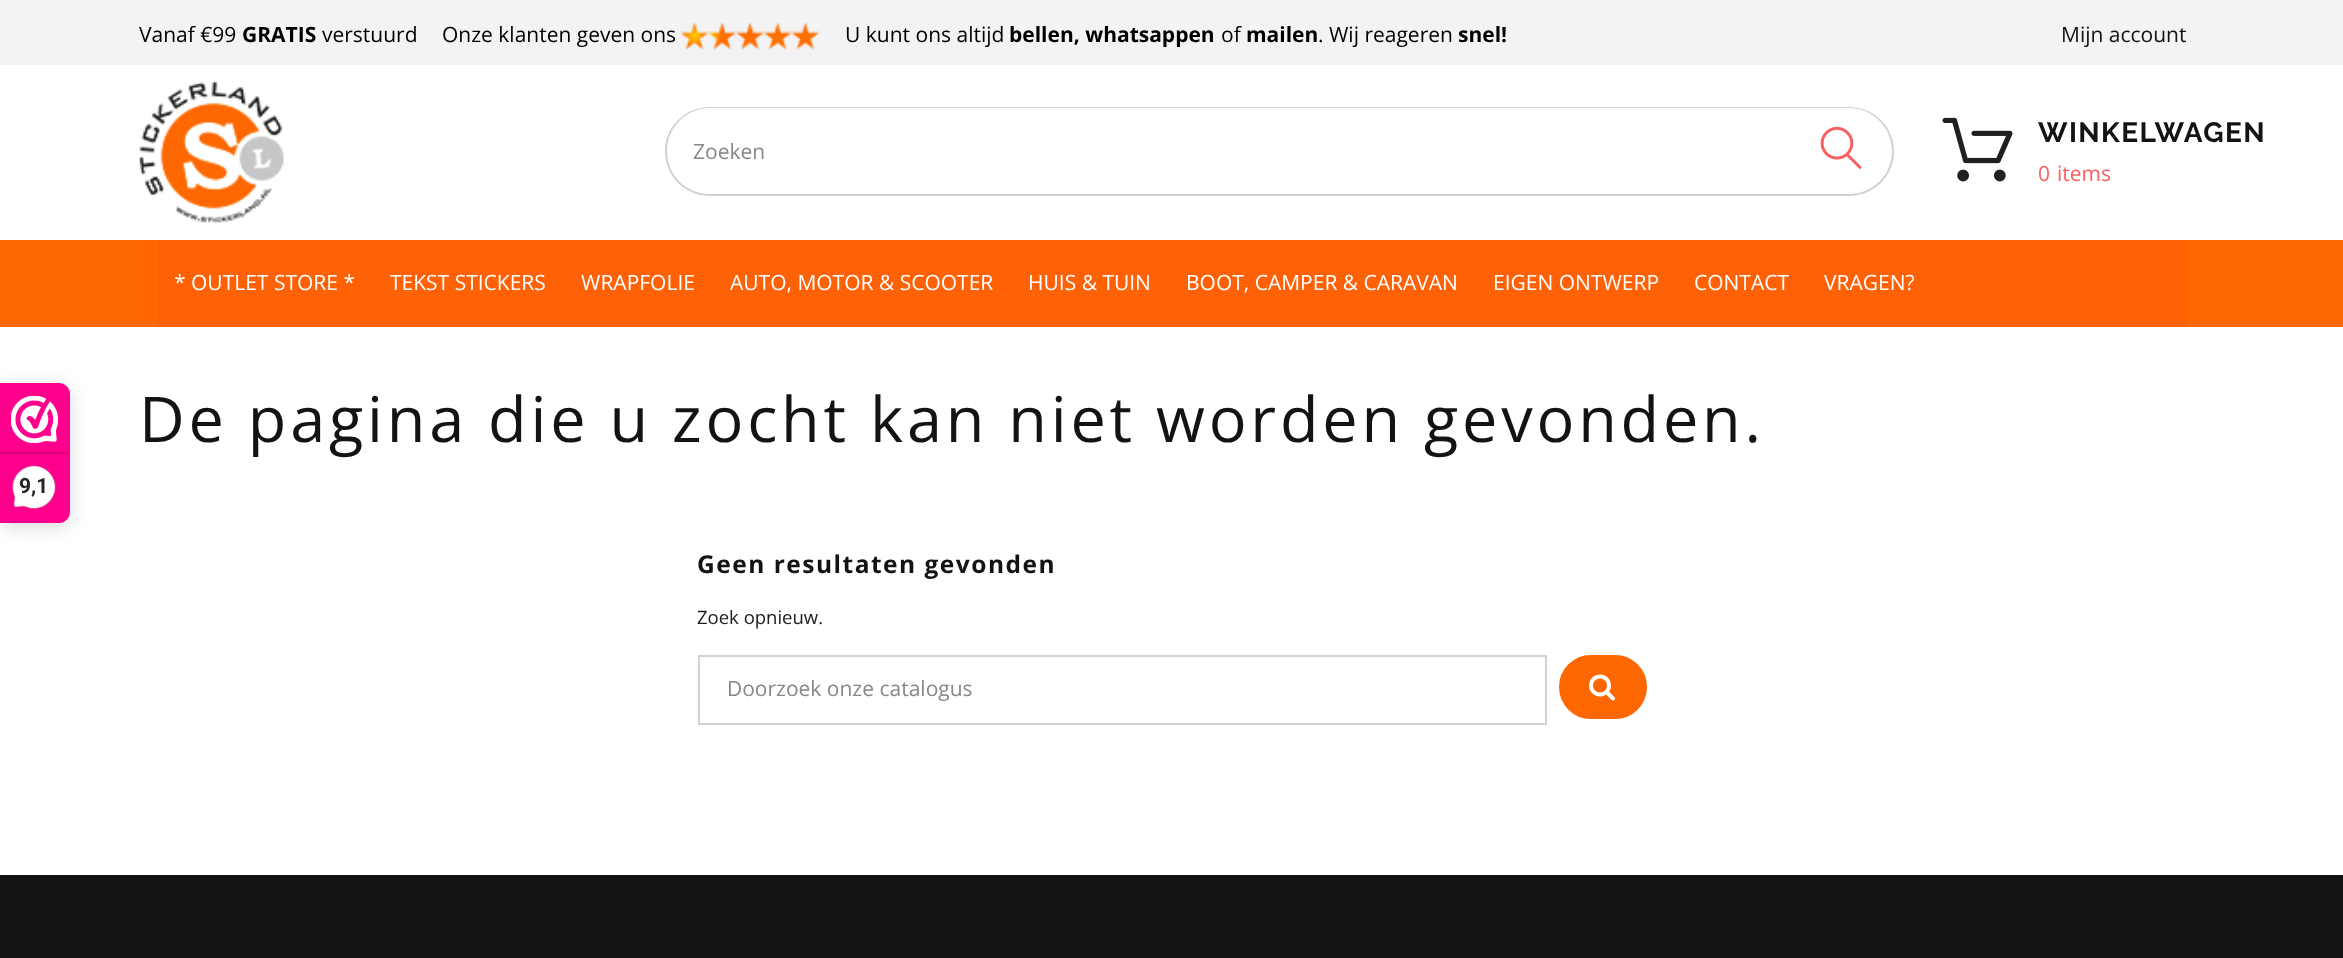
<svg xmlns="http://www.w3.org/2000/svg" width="2343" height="958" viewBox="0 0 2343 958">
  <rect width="100%" height="100%" fill="#fff"/>
  <rect y="387" width="70" height="140" rx="11" fill="#00000026" filter="blur(9px)"/>
  <path d="M0 383H59C65 383 70 388 70 394V512C70 518 65 523 59 523H0Z" fill="#fe008c"/>
  <image x="11" y="396" width="47" height="47" href="img/1.png"/>
  <path d="M0 452h68v2H0z" fill="#d80077"/>
  <image x="12" y="465" width="44" height="45" href="img/2.png"/>
  <path d="M0 0h2343v65H0z" fill="#f3f3f3"/>
  <image x="680" y="22" width="140" height="28" href="img/3.png"/>
  <image x="139" y="81" width="145" height="142" href="img/4.png"/>
  <path d="M710 107H1794V196H710C685 196 665 176 665 151C665 127 685 107 710 107ZM710 108H1794V194H710C686 194 667 175 667 151C667 128 686 108 710 108Z" fill="#d2d2d2" fill-rule="evenodd"/>
  <path d="M1792 107H1849.5C1874 107 1894 127 1894 151.5C1894 176 1874 196 1849.5 196H1792Z" fill="#fff"/>
  <path d="M1792 107H1849C1874 107 1894 127 1894 151C1894 176 1874 196 1849 196H1792ZM1792 108H1849C1873 108 1892 128 1892 151C1892 175 1873 194 1849 194H1792Z" fill="#d2d2d2" fill-rule="evenodd"/>
  <image x="1820" y="126" width="42" height="43" href="img/5.png"/>
  <image x="1942" y="117" width="71" height="65" href="img/6.png"/>
  <path d="M0 240h2343v87H0z" fill="#ff6701"/>
  <path d="M158 240h2030v87H158z" fill="#ff6107"/>
  <path d="M699 656h847v68H699z" fill="none" stroke="#d2d2d2" stroke-width="2"/>
  <rect x="1560" y="656" width="86" height="62" rx="31" fill="#ff6701" stroke="#ff6701" stroke-width="2"/>
  <image x="1589" y="674" width="26" height="27" href="img/7.png"/>
  <path d="M0 875h2343v83H0z" fill="#131313"/>
  <text x="19" y="493" font-family="Roboto" font-size="21" font-weight="bold" fill="#272626">9,1</text>
  <text x="139" y="42" font-family="Open Sans" font-size="21" fill="#000">Vanaf €99</text>
  <text x="242" y="42" font-family="Open Sans" font-size="21" font-weight="bold" fill="#000">GRATIS</text>
  <g font-family="Open Sans" font-size="21" fill="#000">
    <text x="322" y="42">verstuurd</text>
    <text x="442" y="42">Onze klanten geven ons</text>
    <text x="845" y="42">U kunt ons altijd</text>
  </g>
  <text x="1009" y="42" font-family="Open Sans" font-size="21" font-weight="bold" fill="#000">bellen, whatsappen</text>
  <text x="1221" y="42" font-family="Open Sans" font-size="21" fill="#000">of</text>
  <text x="1246" y="42" font-family="Open Sans" font-size="21" font-weight="bold" fill="#000">mailen</text>
  <text x="1318" y="42" font-family="Open Sans" font-size="21" fill="#000">. Wij reageren</text>
  <text x="1458" y="42" font-family="Open Sans" font-size="21" font-weight="bold" fill="#000">snel!</text>
  <text x="2061" y="42" font-family="Open Sans" font-size="21" fill="#131313">Mijn account</text>
  <text x="693" y="159" font-family="Open Sans" font-size="21" fill="#888">Zoeken</text>
  <text x="2038" y="142" font-family="Raleway" font-size="28" font-weight="bold" letter-spacing="1.4" fill="#131313">WINKELWAGEN</text>
  <g font-family="Open Sans" font-size="21" fill="#f86060">
    <text x="2038" y="181">0</text>
    <text x="2057" y="181">items</text>
  </g>
  <g font-family="Open Sans" font-size="21" fill="#fff">
    <text x="174" y="290">* OUTLET STORE *</text>
    <text x="390" y="290">TEKST STICKERS</text>
    <text x="581" y="290">WRAPFOLIE</text>
    <text x="730" y="290">AUTO, MOTOR &amp; SCOOTER</text>
    <text x="1028" y="290">HUIS &amp; TUIN</text>
    <text x="1186" y="290">BOOT, CAMPER &amp; CARAVAN</text>
    <text x="1493" y="290">EIGEN ONTWERP</text>
    <text x="1694" y="290">CONTACT</text>
    <text x="1824" y="290">VRAGEN?</text>
  </g>
  <text x="139" y="442" font-family="Open Sans" font-size="63" letter-spacing="3.8" fill="#131313">De pagina die u zocht kan niet worden gevonden.</text>
  <text x="697" y="573" font-family="Open Sans" font-size="24.5" font-weight="bold" letter-spacing="1.5" fill="#131313">Geen resultaten gevonden</text>
  <text x="697" y="624" font-family="Open Sans" font-size="18.5" fill="#202020">Zoek opnieuw.</text>
  <text x="727" y="696" font-family="Open Sans" font-size="21" fill="#888">Doorzoek onze catalogus</text>
</svg>
